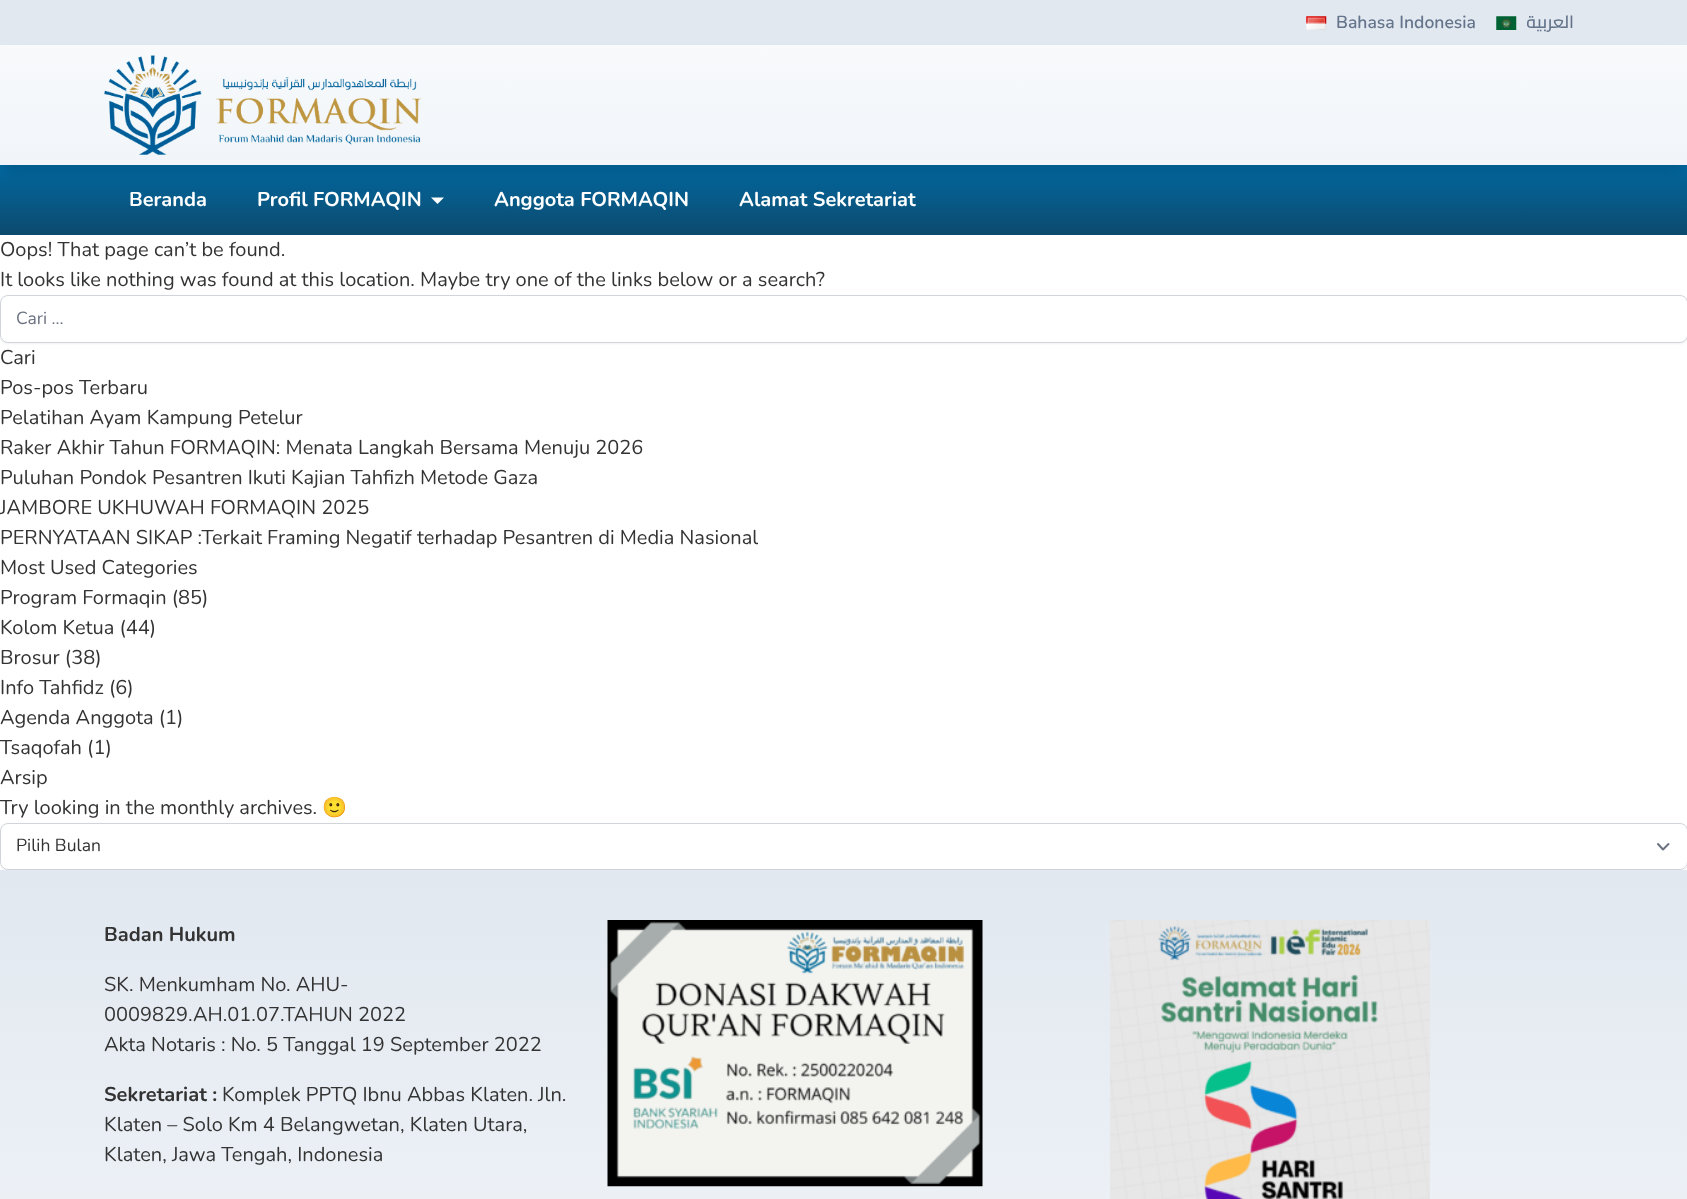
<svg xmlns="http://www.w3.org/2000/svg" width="1687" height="1199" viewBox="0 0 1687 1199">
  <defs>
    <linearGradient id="g1" gradientUnits="userSpaceOnUse" x1="844" y1="165" x2="844" y2="235"><stop offset="0" stop-color="#0369a1"/><stop offset="1" stop-color="#0c4a6e"/></linearGradient>
    <linearGradient id="g2" gradientUnits="userSpaceOnUse" x1="844" y1="45" x2="844" y2="165"><stop offset="0" stop-color="#f8fafc"/><stop offset="1" stop-color="#f1f5f9"/></linearGradient>
    <linearGradient id="g3" gradientUnits="userSpaceOnUse" x1="844" y1="870" x2="844" y2="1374"><stop offset="0" stop-color="#e2e8f0"/><stop offset="1" stop-color="#f1f5f9"/></linearGradient>
  </defs>
  <rect width="100%" height="100%" fill="#fff"/>
  <path d="M0 0h1687v45H0z" fill="#e2e8f0"/>
  <image x="1306" y="16" width="21" height="14" href="img/1.png"/>
  <image x="1496" y="16" width="21" height="14" href="img/2.png"/>
  <path d="M0 165h1687v70H0z" fill="url(#g1)"/>
  <path d="M5 55h1678v110H5z" fill="#0000001a" filter="blur(4px)"/>
  <path d="M4 61h1680v113H4z" fill="#0000001a" filter="blur(9.5px)"/>
  <path d="M0 45h1687v120H0z" fill="url(#g2)"/>
  <image x="103" y="55" width="319" height="100" href="img/3.png"/>
  <path d="M431 197.5H444L437.5 204Z" fill="#fff"/>
  <rect y="296" width="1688" height="48" rx="8" fill="#0000000d" filter="blur(1px)"/>
  <rect x="0.5" y="295.5" width="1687" height="47" rx="7.5" fill="#fff" stroke="#d1d5db"/>
  <rect y="824" width="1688" height="47" rx="8" fill="#0000000d" filter="blur(1px)"/>
  <rect y="823" width="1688" height="47" rx="8" fill="#fff"/>
  <path d="M1658 844L1663 849.5L1668.5 844" fill="none" stroke="#6b7280" stroke-width="2" stroke-linecap="round" stroke-linejoin="round"/>
  <rect x="0.5" y="823.5" width="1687" height="46" rx="7.5" fill="none" stroke="#d1d5db"/>
  <path d="M0 870h1687v329H0z" fill="url(#g3)"/>
  <image x="607" y="920" width="376" height="267" href="img/4.png"/>
  <image x="1110" y="920" width="320" height="279" href="img/5.png"/>
  <text x="1336" y="28" font-family="Nunito" font-size="17.5" font-weight="600" fill="#64748b">Bahasa Indonesia</text>
  <text x="1574" y="28" font-family="Cairo" font-size="17.5" font-weight="600" direction="rtl" fill="#64748b">العربية</text>
  <g font-family="Nunito" font-size="20" font-weight="bold" fill="#fff">
    <text x="129" y="206">Beranda</text>
    <text x="257" y="206">Profil FORMAQIN</text>
    <text x="494" y="206">Anggota FORMAQIN</text>
    <text x="739" y="206">Alamat Sekretariat</text>
  </g>
  <g font-family="Nunito" font-size="20" fill="#333">
    <text x="0" y="256">Oops! That page can’t be found.</text>
    <text x="0" y="286">It looks like nothing was found at this location. Maybe try one of the links below or a search?</text>
  </g>
  <text x="16" y="324" font-family="Nunito" font-size="17.5" fill="#6b7280">Cari …</text>
  <g font-family="Nunito" font-size="20" fill="#333">
    <text x="0" y="364">Cari</text>
    <text x="0" y="394">Pos-pos Terbaru</text>
    <text x="0" y="424">Pelatihan Ayam Kampung Petelur</text>
    <text x="0" y="454">Raker Akhir Tahun FORMAQIN: Menata Langkah Bersama Menuju 2026</text>
    <text x="0" y="484">Puluhan Pondok Pesantren Ikuti Kajian Tahfizh Metode Gaza</text>
    <text x="0" y="514">JAMBORE UKHUWAH FORMAQIN 2025</text>
    <text x="0" y="544">PERNYATAAN SIKAP :Terkait Framing Negatif terhadap Pesantren di Media Nasional</text>
    <text x="0" y="574">Most Used Categories</text>
    <text x="0" y="604">Program Formaqin (85)</text>
    <text x="0" y="634">Kolom Ketua (44)</text>
    <text x="0" y="664">Brosur (38)</text>
    <text x="0" y="694">Info Tahfidz (6)</text>
    <text x="0" y="724">Agenda Anggota (1)</text>
    <text x="0" y="754">Tsaqofah (1)</text>
    <text x="0" y="784">Arsip</text>
    <text x="0" y="814">Try looking in the monthly archives.</text>
  </g>
  <text x="322" y="814" font-family="Noto Color Emoji" font-size="20" fill="#333">🙂</text>
  <text x="16" y="851" font-family="Nunito" font-size="17.5" fill="#333">Pilih Bulan</text>
  <text x="104" y="941" font-family="Nunito" font-size="20" font-weight="bold" fill="#333">Badan Hukum</text>
  <g font-family="Nunito" font-size="20" fill="#333">
    <text x="104" y="991">SK. Menkumham No. AHU-</text>
    <text x="104" y="1021">0009829.AH.01.07.TAHUN 2022</text>
    <text x="104" y="1051">Akta Notaris : No. 5 Tanggal 19 September 2022</text>
  </g>
  <text x="104" y="1101" font-family="Nunito" font-size="20" font-weight="bold" fill="#333">Sekretariat :</text>
  <g font-family="Nunito" font-size="20" fill="#333">
    <text x="222" y="1101">Komplek PPTQ Ibnu Abbas Klaten. Jln.</text>
    <text x="104" y="1131">Klaten – Solo Km 4 Belangwetan, Klaten Utara,</text>
    <text x="104" y="1161">Klaten, Jawa Tengah, Indonesia</text>
  </g>
</svg>
